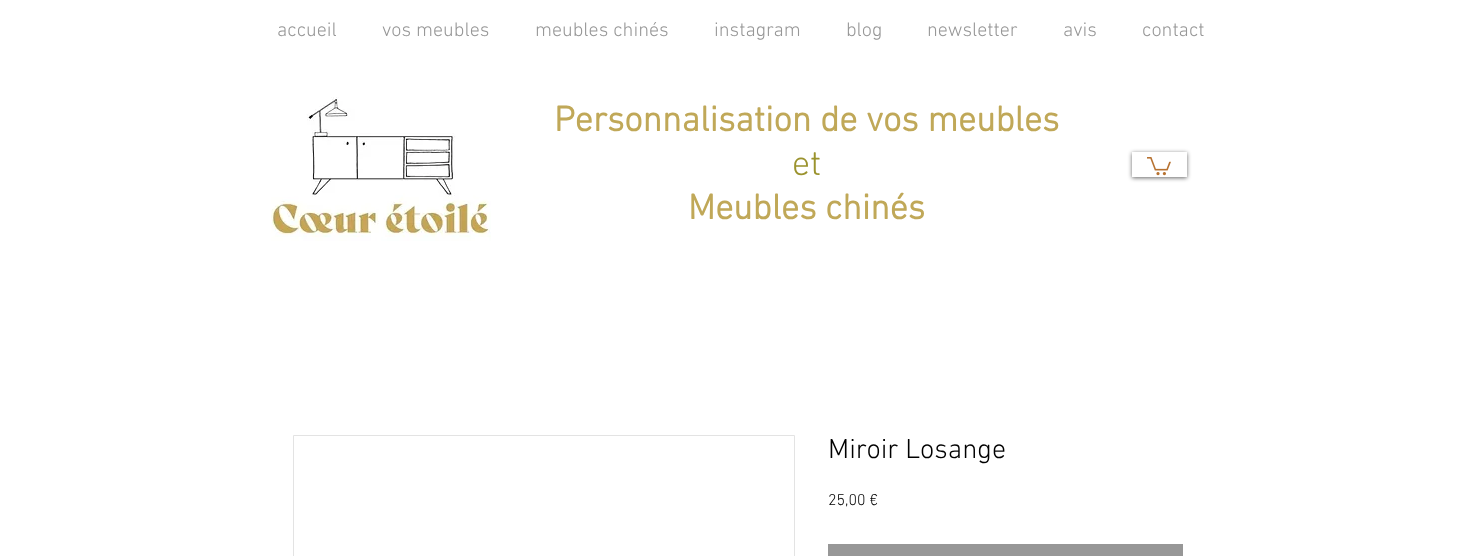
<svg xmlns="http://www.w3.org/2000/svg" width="1475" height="556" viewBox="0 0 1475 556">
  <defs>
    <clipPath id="clip1"><path d="M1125 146H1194V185H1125ZM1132 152H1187V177H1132Z" clip-rule="evenodd"/></clipPath>
  </defs>
  <rect width="100%" height="100%" fill="#fff"/>
  <image x="271" y="97" width="220" height="144" href="img/1.png"/>
  <g clip-path="url(#clip1)">
    <path d="M1132 153h55v25H1132z" fill="#00000099" filter="blur(2px)"/>
  </g>
  <image x="1147" y="157" width="24" height="19" href="img/2.png"/>
  <path d="M293.5 435.5h501v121H293.5z" fill="none" stroke="#e3e3e3"/>
  <path d="M828 544h355v12H828z" fill="#979797"/>
  <g font-family="'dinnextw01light'" font-size="20" font-weight="300" fill="#979797">
    <text x="277" y="36">accueil</text>
    <text x="382" y="36">vos meubles</text>
    <text x="535" y="36">meubles chinés</text>
    <text x="714" y="36">instagram</text>
    <text x="846" y="36">blog</text>
    <text x="927" y="36">newsletter</text>
    <text x="1063" y="36">avis</text>
    <text x="1142" y="36">contact</text>
  </g>
  <text x="554" y="131" font-family="'dinnextw01light'" font-size="36" font-weight="bold" fill="#c0a858">Personnalisation de vos meubles</text>
  <text x="792" y="175" font-family="'dinnextw01light'" font-size="36" font-weight="300" fill="#9b932e">et</text>
  <text x="688" y="219" font-family="'dinnextw01light'" font-size="36" font-weight="bold" fill="#c0a858">Meubles chinés</text>
  <text x="828" y="458" font-family="'dinnextw01light'" font-size="28" font-weight="300" fill="#000">Miroir Losange</text>
  <text x="828" y="505" font-family="'dinnextw01light'" font-size="16" font-weight="300" fill="#000">25,00 €</text>
</svg>
